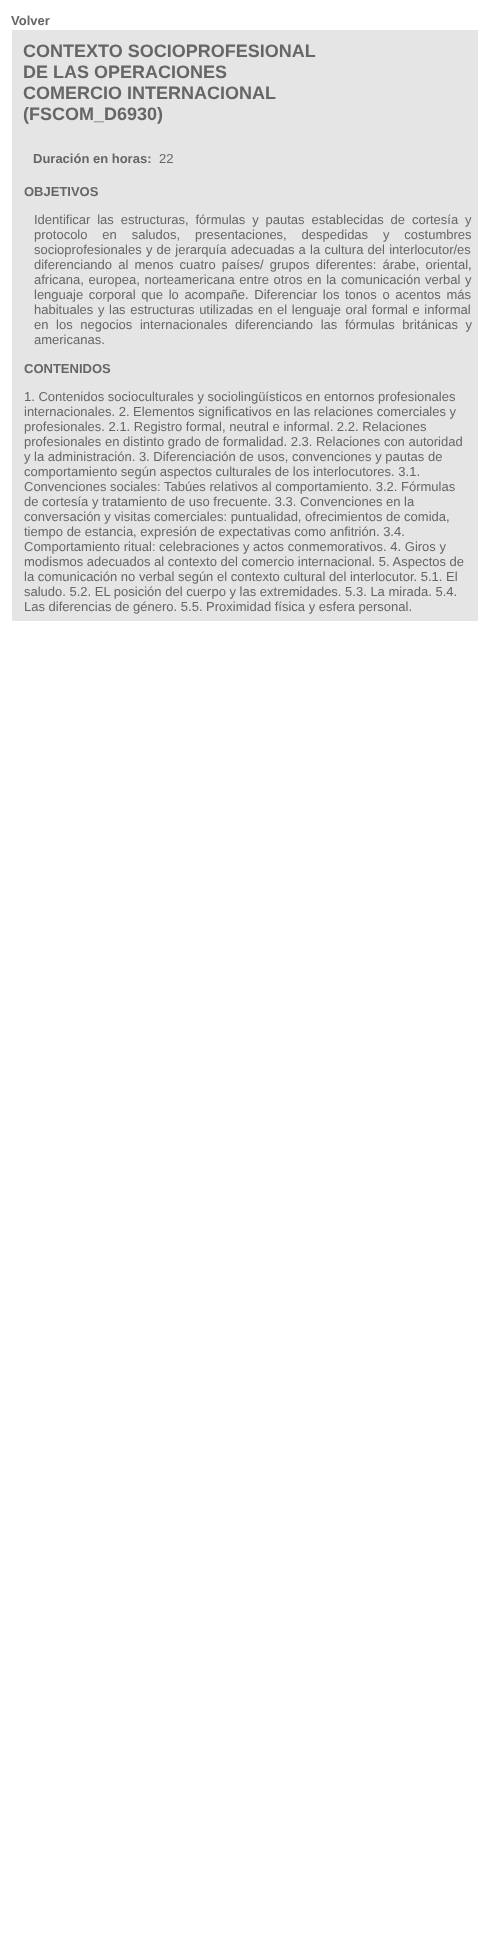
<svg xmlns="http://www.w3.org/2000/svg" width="490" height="1937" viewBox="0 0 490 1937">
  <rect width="100%" height="100%" fill="#fff"/>
  <path d="M12 30h466v591H12z" fill="#e5e5e5"/>
  <text x="11" y="25" font-family="Liberation Sans" font-size="13" font-weight="bold" fill="#666">Volver</text>
  <g font-family="Liberation Sans" font-size="18" font-weight="bold" fill="#666">
    <text x="23" y="57">CONTEXTO SOCIOPROFESIONAL</text>
    <text x="23" y="78">DE LAS OPERACIONES</text>
    <text x="23" y="99">COMERCIO INTERNACIONAL</text>
    <text x="23" y="120">(FSCOM_D6930)</text>
  </g>
  <text x="33" y="163" font-family="Liberation Sans" font-size="13" font-weight="bold" fill="#666">Duración en horas:</text>
  <text x="159" y="163" font-family="Liberation Sans" font-size="13" fill="#666">22</text>
  <text x="24" y="196" font-family="Liberation Sans" font-size="13" font-weight="bold" fill="#666">OBJETIVOS</text>
  <g font-family="Liberation Sans" font-size="13" fill="#666">
    <text x="34" y="224" word-spacing="3.25">Identificar las estructuras, fórmulas y pautas establecidas de cortesía y</text>
    <text x="34" y="239" word-spacing="11.25">protocolo en saludos, presentaciones, despedidas y costumbres</text>
    <text x="34" y="254" word-spacing="0.6">socioprofesionales y de jerarquía adecuadas a la cultura del interlocutor/es</text>
    <text x="34" y="269" word-spacing="2.5">diferenciando al menos cuatro países/ grupos diferentes: árabe, oriental,</text>
    <text x="34" y="284" word-spacing="1">africana, europea, norteamericana entre otros en la comunicación verbal y</text>
    <text x="34" y="299" word-spacing="2">lenguaje corporal que lo acompañe. Diferenciar los tonos o acentos más</text>
    <text x="34" y="314" word-spacing="1">habituales y las estructuras utilizadas en el lenguaje oral formal e informal</text>
    <text x="34" y="329" word-spacing="4">en los negocios internacionales diferenciando las fórmulas británicas y</text>
    <text x="34" y="344">americanas.</text>
  </g>
  <text x="24" y="373" font-family="Liberation Sans" font-size="13" font-weight="bold" fill="#666">CONTENIDOS</text>
  <g font-family="Liberation Sans" font-size="13" fill="#666">
    <text x="24" y="401">1. Contenidos socioculturales y sociolingüísticos en entornos profesionales</text>
    <text x="24" y="416">internacionales. 2. Elementos significativos en las relaciones comerciales y</text>
    <text x="24" y="431">profesionales. 2.1. Registro formal, neutral e informal. 2.2. Relaciones</text>
    <text x="24" y="446">profesionales en distinto grado de formalidad. 2.3. Relaciones con autoridad</text>
    <text x="24" y="461">y la administración. 3. Diferenciación de usos, convenciones y pautas de</text>
    <text x="24" y="476">comportamiento según aspectos culturales de los interlocutores. 3.1.</text>
    <text x="24" y="491">Convenciones sociales: Tabúes relativos al comportamiento. 3.2. Fórmulas</text>
    <text x="24" y="506">de cortesía y tratamiento de uso frecuente. 3.3. Convenciones en la</text>
    <text x="24" y="521">conversación y visitas comerciales: puntualidad, ofrecimientos de comida,</text>
    <text x="24" y="536">tiempo de estancia, expresión de expectativas como anfitrión. 3.4.</text>
    <text x="24" y="551">Comportamiento ritual: celebraciones y actos conmemorativos. 4. Giros y</text>
    <text x="24" y="566">modismos adecuados al contexto del comercio internacional. 5. Aspectos de</text>
    <text x="24" y="581">la comunicación no verbal según el contexto cultural del interlocutor. 5.1. El</text>
    <text x="24" y="596">saludo. 5.2. EL posición del cuerpo y las extremidades. 5.3. La mirada. 5.4.</text>
    <text x="24" y="611">Las diferencias de género. 5.5. Proximidad física y esfera personal.</text>
  </g>
</svg>
